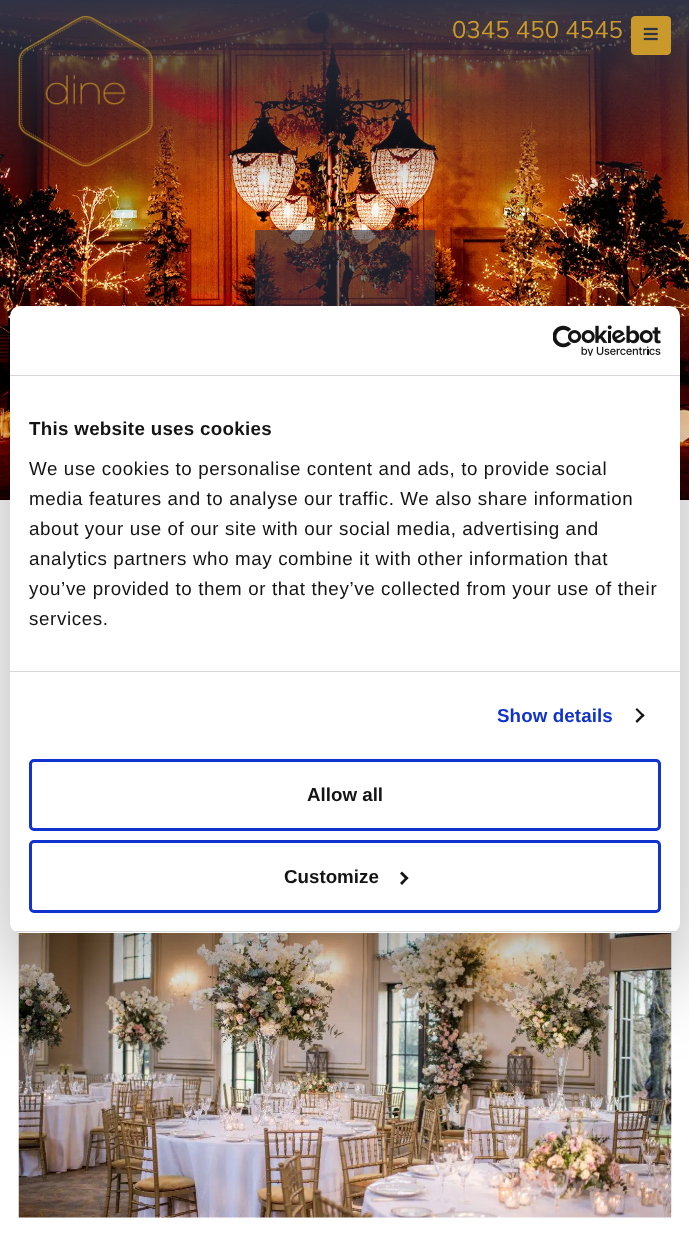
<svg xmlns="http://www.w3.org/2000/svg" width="689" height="1238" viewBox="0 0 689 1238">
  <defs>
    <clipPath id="clip1"><rect x="10" y="306" width="670" height="627" rx="10"/></clipPath>
  </defs>
  <rect width="100%" height="100%" fill="#fff"/>
  <image x="0" y="0" width="689" height="500" href="img/1.png"/>
  <path d="M255 230h180v76H255z" fill="#30334599"/>
  <image x="18" y="16" width="135" height="151" href="img/2.png"/>
  <rect x="631.5" y="16.5" width="39" height="38" rx="3.5" fill="#ca992c" stroke="#ca992c"/>
  <image x="643" y="27" width="15" height="14" href="img/3.png"/>
  <image x="18" y="932" width="654" height="286" href="img/5.png"/>
  <rect x="10" y="346" width="670" height="627" rx="10" fill="#0000004d" filter="blur(42.5px)"/>
  <rect x="10" y="306" width="670" height="627" rx="10" fill="#fff"/>
  <path d="M10 375h670v1H10z" fill="#d6d6d6"/>
  <image x="553" y="325" width="108" height="31" href="img/4.png"/>
  <path d="M10 671h670v1H10z" fill="#d6d6d6"/>
  <path d="M637 708L644.5 715.5L643 717L635.5 709.5Z" fill="#141414"/>
  <path d="M643 713.5L644.5 715.5L637 723L635.5 721Z" fill="#141414"/>
  <g clip-path="url(#clip1)">
    <path d="M10 931h670v1H10z" fill="#d6d6d6"/>
  </g>
  <rect x="30.5" y="760.5" width="629" height="69" rx="3.5" fill="none" stroke="#1032cf" stroke-width="3"/>
  <rect x="30.5" y="841.5" width="629" height="70" rx="3.5" fill="none" stroke="#1032cf" stroke-width="3"/>
  <path d="M402 871.5L408.5 878L406.5 880L400 873.5Z" fill="#141414"/>
  <path d="M406.5 876.5L408.5 878L402 885L400 883Z" fill="#141414"/>
  <text x="452" y="38" font-family="Muli" font-size="24" fill="#ca992c">0345 450 4545</text>
  <text x="29" y="435" font-family="Liberation Sans" font-size="18.75" font-weight="bold" letter-spacing="0.3" fill="#141414">This website uses cookies</text>
  <g font-family="Liberation Sans" font-size="18.75" letter-spacing="0.62" fill="#141414">
    <text x="29" y="475">We use cookies to personalise content and ads, to provide social</text>
    <text x="29" y="505">media features and to analyse our traffic. We also share information</text>
    <text x="29" y="535">about your use of our site with our social media, advertising and</text>
    <text x="29" y="565">analytics partners who may combine it with other information that</text>
    <text x="29" y="595">you’ve provided to them or that they’ve collected from your use of their</text>
    <text x="29" y="625">services.</text>
  </g>
  <text x="497" y="722" font-family="Liberation Sans" font-size="18.75" font-weight="bold" letter-spacing="0.1" fill="#1032cf">Show details</text>
  <g font-family="Liberation Sans" font-size="18.75" font-weight="bold" fill="#141414">
    <text x="307" y="801">Allow all</text>
    <text x="284" y="883">Customize</text>
  </g>
</svg>
